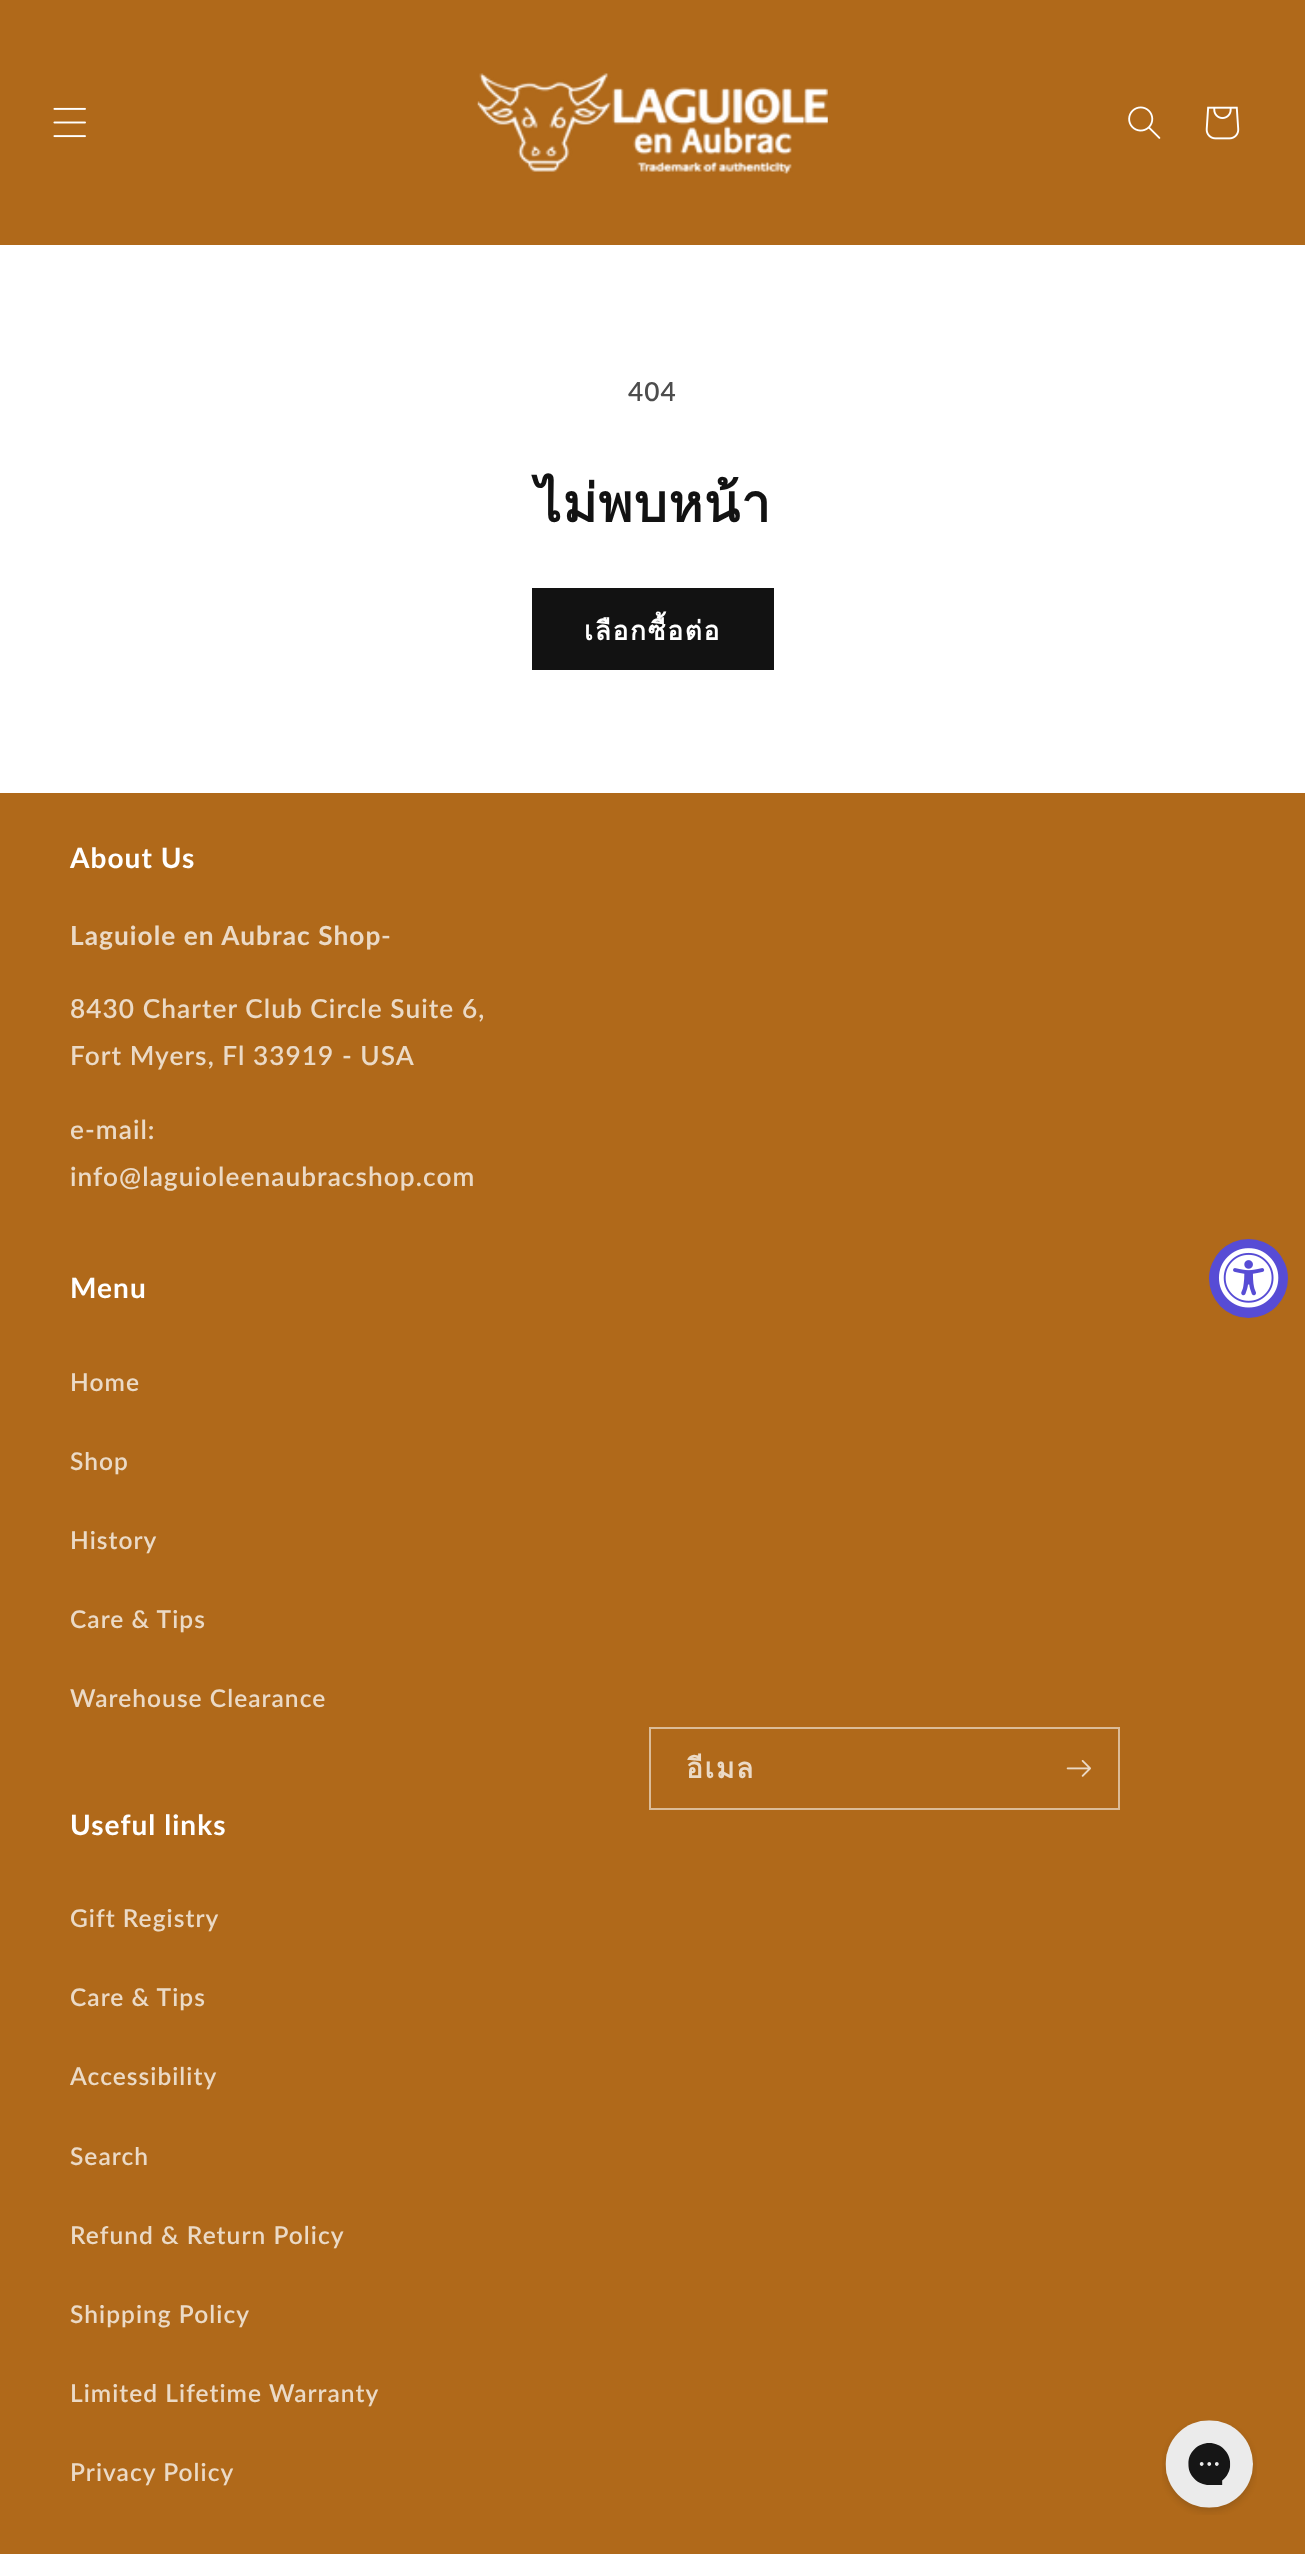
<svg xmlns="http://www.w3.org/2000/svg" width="1305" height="2554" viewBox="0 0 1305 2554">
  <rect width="100%" height="100%" fill="#fff"/>
  <path d="M0 0h1305v245H0z" fill="#b0691a"/>
  <image x="53" y="107" width="33" height="31" href="img/1.png"/>
  <image x="477" y="73" width="351" height="101" href="img/2.png"/>
  <image x="1128" y="106" width="33" height="33" href="img/3.png"/>
  <image x="1205" y="106" width="35" height="34" href="img/4.png"/>
  <path d="M532 588h242v82H532z" fill="#121212"/>
  <path d="M0 793h1305v1761H0z" fill="#b0691a"/>
  <path d="M650 1728h469v81H650z" fill="none" stroke="#dbbc98" stroke-width="2"/>
  <image x="1066" y="1760" width="25" height="17" href="img/5.png"/>
  <circle cx="1248.5" cy="1278.5" r="39.5" fill="#574cd5"/>
  <image x="1218" y="1248" width="61" height="60" href="img/6.png"/>
  <image x="1162" y="2420" width="95" height="95" href="img/7.png"/>
  <text x="628" y="401" font-family="Lato" font-size="26.25" font-weight="600" letter-spacing="1.05" fill="#4d4d4d">404</text>
  <text x="535" y="522" font-family="Loma" font-size="52.5" font-weight="bold" letter-spacing="1.05" fill="#121212">ไม่พบหน้า</text>
  <text x="584" y="640" font-family="Loma" font-size="26.25" font-weight="bold" letter-spacing="1.75" fill="#fff">เลือกซื้อต่อ</text>
  <text x="70" y="868" font-family="Lato" font-size="28" font-weight="bold" letter-spacing="1.05" fill="#fff">About Us</text>
  <text x="70" y="945" font-family="Lato" font-size="26.25" font-weight="bold" letter-spacing="1.05" fill="#ebdac6">Laguiole en Aubrac Shop</text>
  <g font-family="Lato" font-size="26.25" font-weight="600" letter-spacing="1.05" fill="#ebdac6">
    <text x="381" y="945">-</text>
    <text x="70" y="1018">8430 Charter Club Circle Suite 6,</text>
    <text x="70" y="1065">Fort Myers, Fl 33919 - USA</text>
    <text x="70" y="1139">e-mail:</text>
    <text x="70" y="1186">info@laguioleenaubracshop.com</text>
  </g>
  <text x="70" y="1298" font-family="Lato" font-size="28" font-weight="bold" letter-spacing="1.05" fill="#fff">Menu</text>
  <g font-family="Lato" font-size="24.5" font-weight="600" letter-spacing="1.05" fill="#ebdac6">
    <text x="70" y="1391">Home</text>
    <text x="70" y="1470">Shop</text>
    <text x="70" y="1549">History</text>
    <text x="70" y="1628">Care &amp; Tips</text>
    <text x="70" y="1707">Warehouse Clearance</text>
  </g>
  <text x="70" y="1835" font-family="Lato" font-size="28" font-weight="bold" letter-spacing="1.05" fill="#fff">Useful links</text>
  <g font-family="Lato" font-size="24.5" font-weight="600" letter-spacing="1.05" fill="#ebdac6">
    <text x="70" y="1927">Gift Registry</text>
    <text x="70" y="2006">Care &amp; Tips</text>
    <text x="70" y="2085">Accessibility</text>
    <text x="70" y="2165">Search</text>
    <text x="70" y="2244">Refund &amp; Return Policy</text>
    <text x="70" y="2323">Shipping Policy</text>
    <text x="70" y="2402">Limited Lifetime Warranty</text>
    <text x="70" y="2481">Privacy Policy</text>
  </g>
  <text x="686" y="1778" font-family="Loma" font-size="28" font-weight="bold" letter-spacing="1.75" fill="#ebdac6">อีเมล</text>
</svg>
